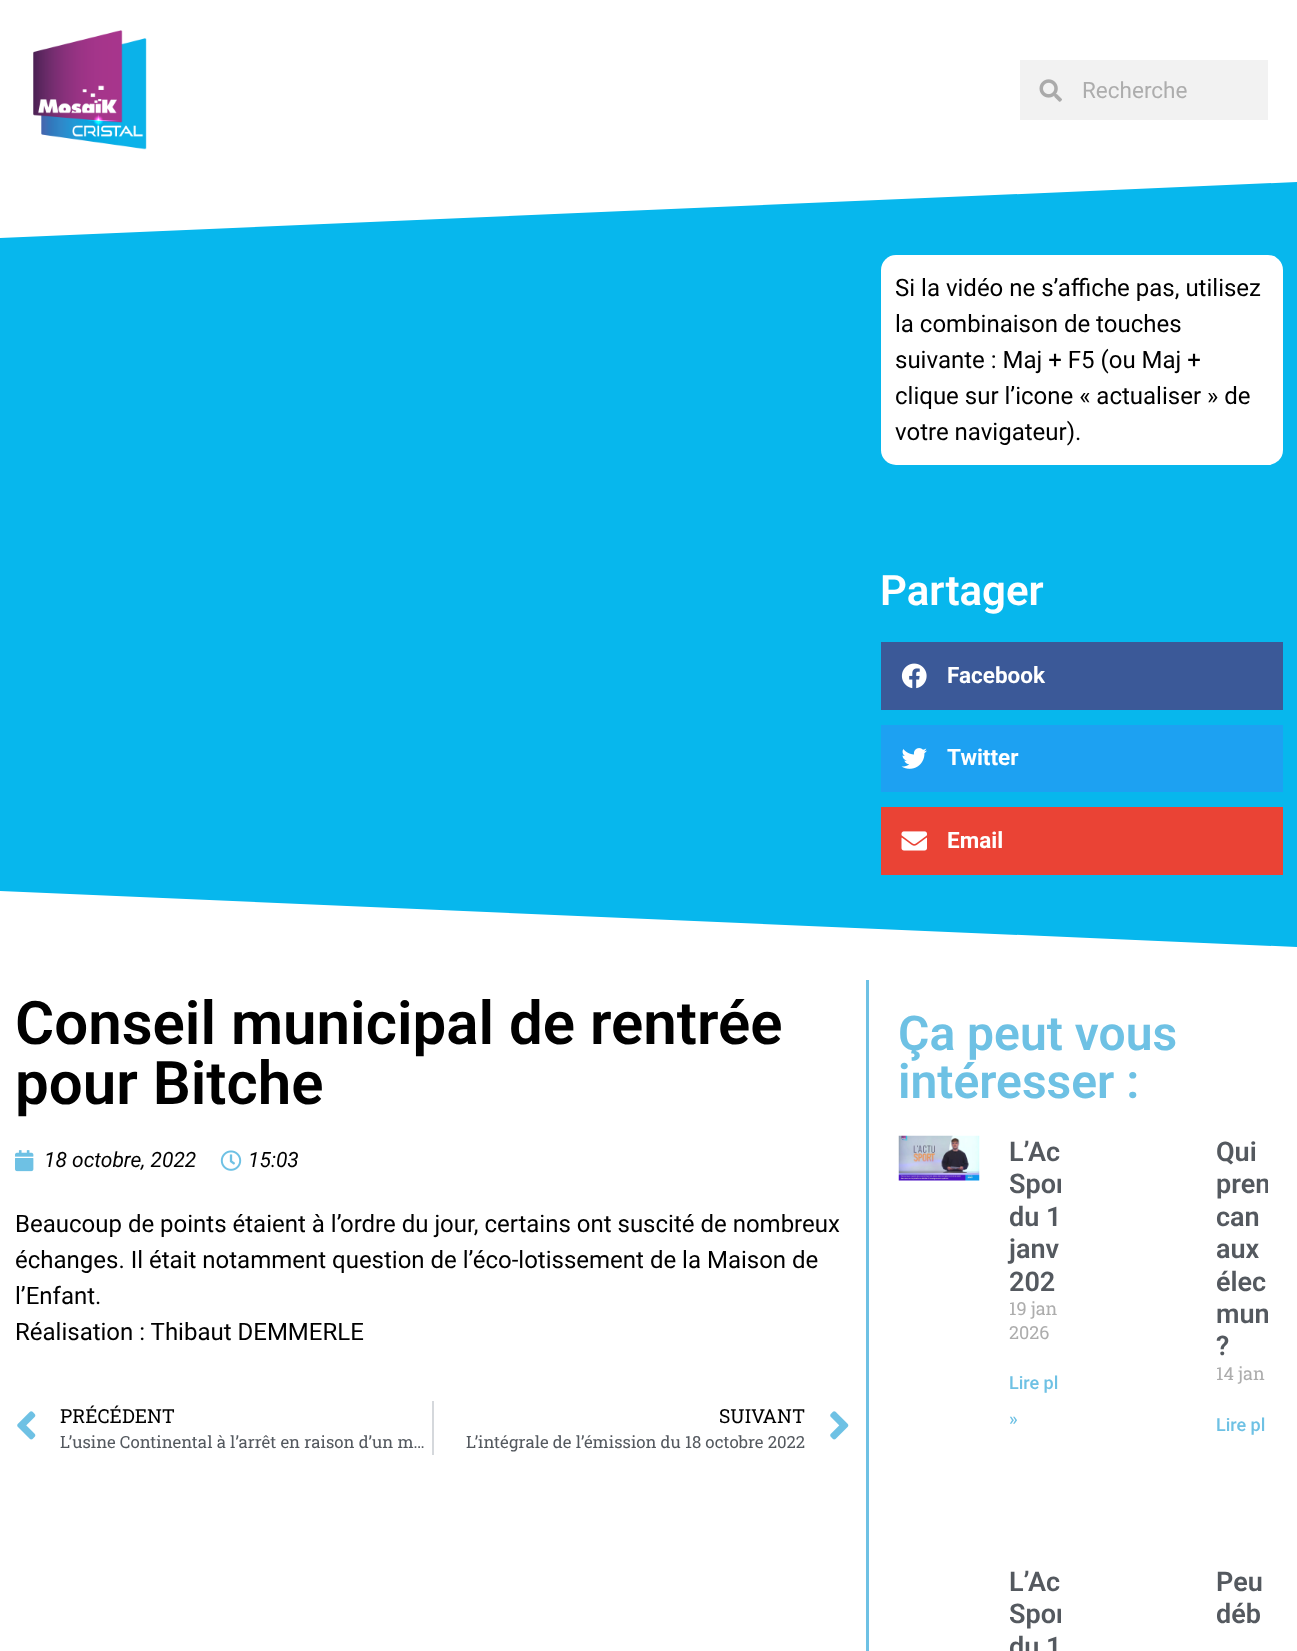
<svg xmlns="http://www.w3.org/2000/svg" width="1297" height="1651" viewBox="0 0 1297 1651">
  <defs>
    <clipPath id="clip1"><path d="M0 179h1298v60H0z"/></clipPath>
    <clipPath id="clip2"><path d="M899 1136h162v378H899z"/></clipPath>
    <clipPath id="clip3"><path d="M1106 1136h162v378H1106z"/></clipPath>
    <clipPath id="clip4"><path d="M899 1566h162v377H899z"/></clipPath>
  </defs>
  <rect width="100%" height="100%" fill="#fff"/>
  <image x="33" y="30" width="114" height="120" href="img/1.png"/>
  <path d="M1020 60h248v60H1020z" fill="#f2f2f2"/>
  <image x="1039" y="79" width="23" height="23" href="img/2.png"/>
  <path d="M0 182h1297v765H0z" fill="#07b7ed"/>
  <g clip-path="url(#clip1)">
    <path d="M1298 182V178H-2V238Z" fill="#fff"/>
  </g>
  <rect x="881" y="255" width="402" height="210" rx="15" fill="#fff"/>
  <path d="M881 642h402v68H881z" fill="#3b5998"/>
  <image x="901" y="663" width="26" height="26" href="img/3.png"/>
  <path d="M881 725h402v67H881z" fill="#1da1f2"/>
  <image x="901" y="748" width="26" height="21" href="img/4.png"/>
  <path d="M881 807h402v68H881z" fill="#ea4335"/>
  <image x="901" y="831" width="26" height="20" href="img/5.png"/>
  <path d="M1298 947V951H-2V891Z" fill="#fff"/>
  <image x="15" y="1150" width="19" height="22" href="img/6.png"/>
  <image x="220" y="1150" width="22" height="21" href="img/7.png"/>
  <image x="17" y="1411" width="19" height="29" href="img/8.png"/>
  <path d="M432 1401h2v54H432z" fill="#d5d8dc"/>
  <image x="830" y="1411" width="19" height="29" href="img/9.png"/>
  <path d="M866 980h3v671H866z" fill="#6ec1e4"/>
  <image x="898" y="1135" width="82" height="46" href="img/10.png"/>
  <text x="1082" y="98" font-family="Roboto" font-size="22.5" fill="#adadad">Recherche</text>
  <g font-family="Roboto" font-size="24" fill="#000">
    <text x="895" y="296">Si la vidéo ne s’affiche pas, utilisez</text>
    <text x="895" y="332">la combinaison de touches</text>
    <text x="895" y="368">suivante : Maj + F5 (ou Maj +</text>
    <text x="895" y="404">clique sur l’icone « actualiser » de</text>
    <text x="895" y="440">votre navigateur).</text>
  </g>
  <text x="880" y="605" font-family="Roboto" font-size="42" font-weight="600" fill="#fff">Partager</text>
  <g font-family="Roboto" font-size="22.5" font-weight="bold" fill="#fff">
    <text x="947" y="683">Facebook</text>
    <text x="947" y="765">Twitter</text>
    <text x="947" y="848">Email</text>
  </g>
  <g font-family="Roboto" font-size="60" font-weight="600" fill="#000">
    <text x="15" y="1044">Conseil municipal de rentrée</text>
    <text x="15" y="1104">pour Bitche</text>
  </g>
  <g font-family="Roboto" font-size="21" font-style="italic" fill="#000">
    <text x="44" y="1167">18 octobre, 2022</text>
    <text x="248" y="1167">15:03</text>
  </g>
  <g font-family="Roboto" font-size="24" fill="#000">
    <text x="15" y="1232">Beaucoup de points étaient à l’ordre du jour, certains ont suscité de nombreux</text>
    <text x="15" y="1268">échanges. Il était notamment question de l’éco-lotissement de la Maison de</text>
    <text x="15" y="1304">l’Enfant.</text>
    <text x="15" y="1340">Réalisation : Thibaut DEMMERLE</text>
  </g>
  <text x="60" y="1423" font-family="Roboto Slab" font-size="19.25" fill="#000">PRÉCÉDENT</text>
  <text x="60" y="1448" font-family="Roboto Slab" font-size="16.8" fill="#54595f">L’usine Continental à l’arrêt en raison d’un m…</text>
  <text x="719" y="1423" font-family="Roboto Slab" font-size="19.25" fill="#000">SUIVANT</text>
  <text x="466" y="1448" font-family="Roboto Slab" font-size="16.8" fill="#54595f">L’intégrale de l’émission du 18 octobre 2022</text>
  <g font-family="Roboto" font-size="48" font-weight="600" fill="#6ec1e4">
    <text x="898" y="1050">Ça peut vous</text>
    <text x="898" y="1098">intéresser :</text>
  </g>
  <text x="1009" y="1161" font-family="Roboto" font-size="27" font-weight="600" fill="#54595f">L’Ac</text>
  <g clip-path="url(#clip2)">
    <text x="1009" y="1193" font-family="Roboto" font-size="27" font-weight="600" fill="#54595f">Spor</text>
  </g>
  <g font-family="Roboto" font-size="27" font-weight="600" fill="#54595f">
    <text x="1009" y="1226">du 1</text>
    <text x="1009" y="1258">janv</text>
    <text x="1009" y="1291">202</text>
  </g>
  <g font-family="Roboto Slab" font-size="18" fill="#adadad">
    <text x="1009" y="1315">19 jan</text>
    <text x="1009" y="1339">2026</text>
  </g>
  <g font-family="Roboto" font-size="18" font-weight="500" fill="#6ec1e4">
    <text x="1009" y="1389">Lire pl</text>
    <text x="1009" y="1425">»</text>
  </g>
  <text x="1216" y="1161" font-family="Roboto" font-size="27" font-weight="600" fill="#54595f">Qui</text>
  <g clip-path="url(#clip3)">
    <text x="1216" y="1193" font-family="Roboto" font-size="27" font-weight="600" fill="#54595f">prem</text>
  </g>
  <g font-family="Roboto" font-size="27" font-weight="600" fill="#54595f">
    <text x="1216" y="1226">can</text>
    <text x="1216" y="1258">aux</text>
    <text x="1216" y="1291">élec</text>
  </g>
  <g clip-path="url(#clip3)">
    <text x="1216" y="1323" font-family="Roboto" font-size="27" font-weight="600" fill="#54595f">mun</text>
  </g>
  <text x="1216" y="1355" font-family="Roboto" font-size="27" font-weight="600" fill="#54595f">?</text>
  <text x="1216" y="1380" font-family="Roboto Slab" font-size="18" fill="#adadad">14 jan</text>
  <text x="1216" y="1431" font-family="Roboto" font-size="18" font-weight="500" fill="#6ec1e4">Lire pl</text>
  <text x="1009" y="1591" font-family="Roboto" font-size="27" font-weight="600" fill="#54595f">L’Ac</text>
  <g clip-path="url(#clip4)">
    <text x="1009" y="1623" font-family="Roboto" font-size="27" font-weight="600" fill="#54595f">Spor</text>
  </g>
  <g font-family="Roboto" font-size="27" font-weight="600" fill="#54595f">
    <text x="1009" y="1656">du 1</text>
    <text x="1216" y="1591">Peu</text>
    <text x="1216" y="1623">déb</text>
  </g>
</svg>
